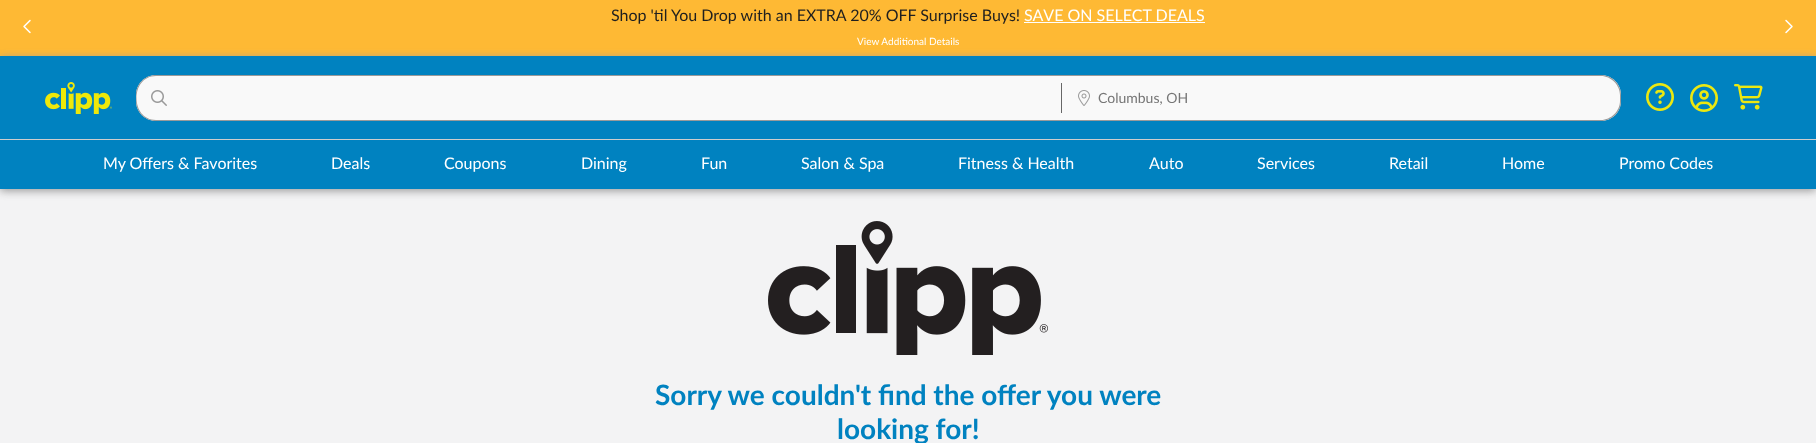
<svg xmlns="http://www.w3.org/2000/svg" width="1816" height="443" viewBox="0 0 1816 443">
  <rect width="100%" height="100%" fill="#f3f3f4"/>
  <path d="M0 0h1816v56H0z" fill="#feb934"/>
  <image x="23" y="19" width="8" height="15" href="img/1.png"/>
  <path d="M1024 22h181v1H1024z" fill="#fff"/>
  <image x="1785" y="19" width="8" height="15" href="img/2.png"/>
  <path d="M0 58h1816v133H0z" fill="#9a9a9a" filter="blur(4px)"/>
  <path d="M0 56h1816v83H0z" fill="#0082c0"/>
  <path d="M0 139h1816v1H0z" fill="#cdcdcd"/>
  <image x="45" y="82" width="67" height="32" href="img/3.png"/>
  <path d="M156 75H1062V121H156C145 121 136 112 136 101V95C136 84 145 75 156 75Z" fill="#f9f9f9"/>
  <path d="M156 75H1062V121H156C145 121 136 112 136 101V95C136 84 145 75 156 75ZM156 76H1062V120H156C130 120 130 76 156 76Z" fill="#9a9a9a" fill-rule="evenodd"/>
  <image x="151" y="90" width="16" height="16" href="img/4.png"/>
  <path d="M1061 83h1v30H1061z" fill="#676767"/>
  <path d="M1062 75H1601C1612 75 1621 84 1621 95V101C1621 112 1612 121 1601 121H1062Z" fill="#f9f9f9"/>
  <path d="M1062 75H1601C1612 75 1621 84 1621 95V101C1621 112 1612 121 1601 121H1062ZM1062 76H1601C1611 76 1620 85 1620 95V101C1620 111 1611 120 1601 120H1062Z" fill="#9a9a9a" fill-rule="evenodd"/>
  <image x="1078" y="90" width="12" height="16" href="img/5.png"/>
  <image x="1646" y="83" width="28" height="28" href="img/6.png"/>
  <image x="1690" y="84" width="28" height="28" href="img/7.png"/>
  <image x="1734" y="84" width="29" height="26" href="img/8.png"/>
  <path d="M0 140h1816v49H0z" fill="#0082c0"/>
  <image x="768" y="221" width="280" height="134" href="img/9.png"/>
  <text x="611" y="21" font-family="Lato" font-size="16" fill="#1f1f1f">Shop 'til You Drop with an EXTRA 20% OFF Surprise Buys!</text>
  <text x="1024" y="21" font-family="Lato" font-size="16" fill="#fff">SAVE ON SELECT DEALS</text>
  <text x="857" y="45" font-family="Lato" font-size="10" fill="#fff">View Additional Details</text>
  <text x="1098" y="103" font-family="Lato" font-size="14" fill="#757575">Columbus, OH</text>
  <g font-family="Lato" font-size="16" fill="#fff">
    <text x="103" y="169">My Offers &amp; Favorites</text>
    <text x="331" y="169">Deals</text>
    <text x="444" y="169">Coupons</text>
    <text x="581" y="169">Dining</text>
    <text x="701" y="169">Fun</text>
    <text x="801" y="169">Salon &amp; Spa</text>
    <text x="958" y="169">Fitness &amp; Health</text>
    <text x="1149" y="169">Auto</text>
    <text x="1257" y="169">Services</text>
    <text x="1389" y="169">Retail</text>
    <text x="1502" y="169">Home</text>
    <text x="1619" y="169">Promo Codes</text>
  </g>
  <g font-family="Lato" font-size="28" font-weight="bold" fill="#0082c0">
    <text x="655" y="405">Sorry we couldn't find the offer you were</text>
    <text x="837" y="439">looking for!</text>
  </g>
</svg>
